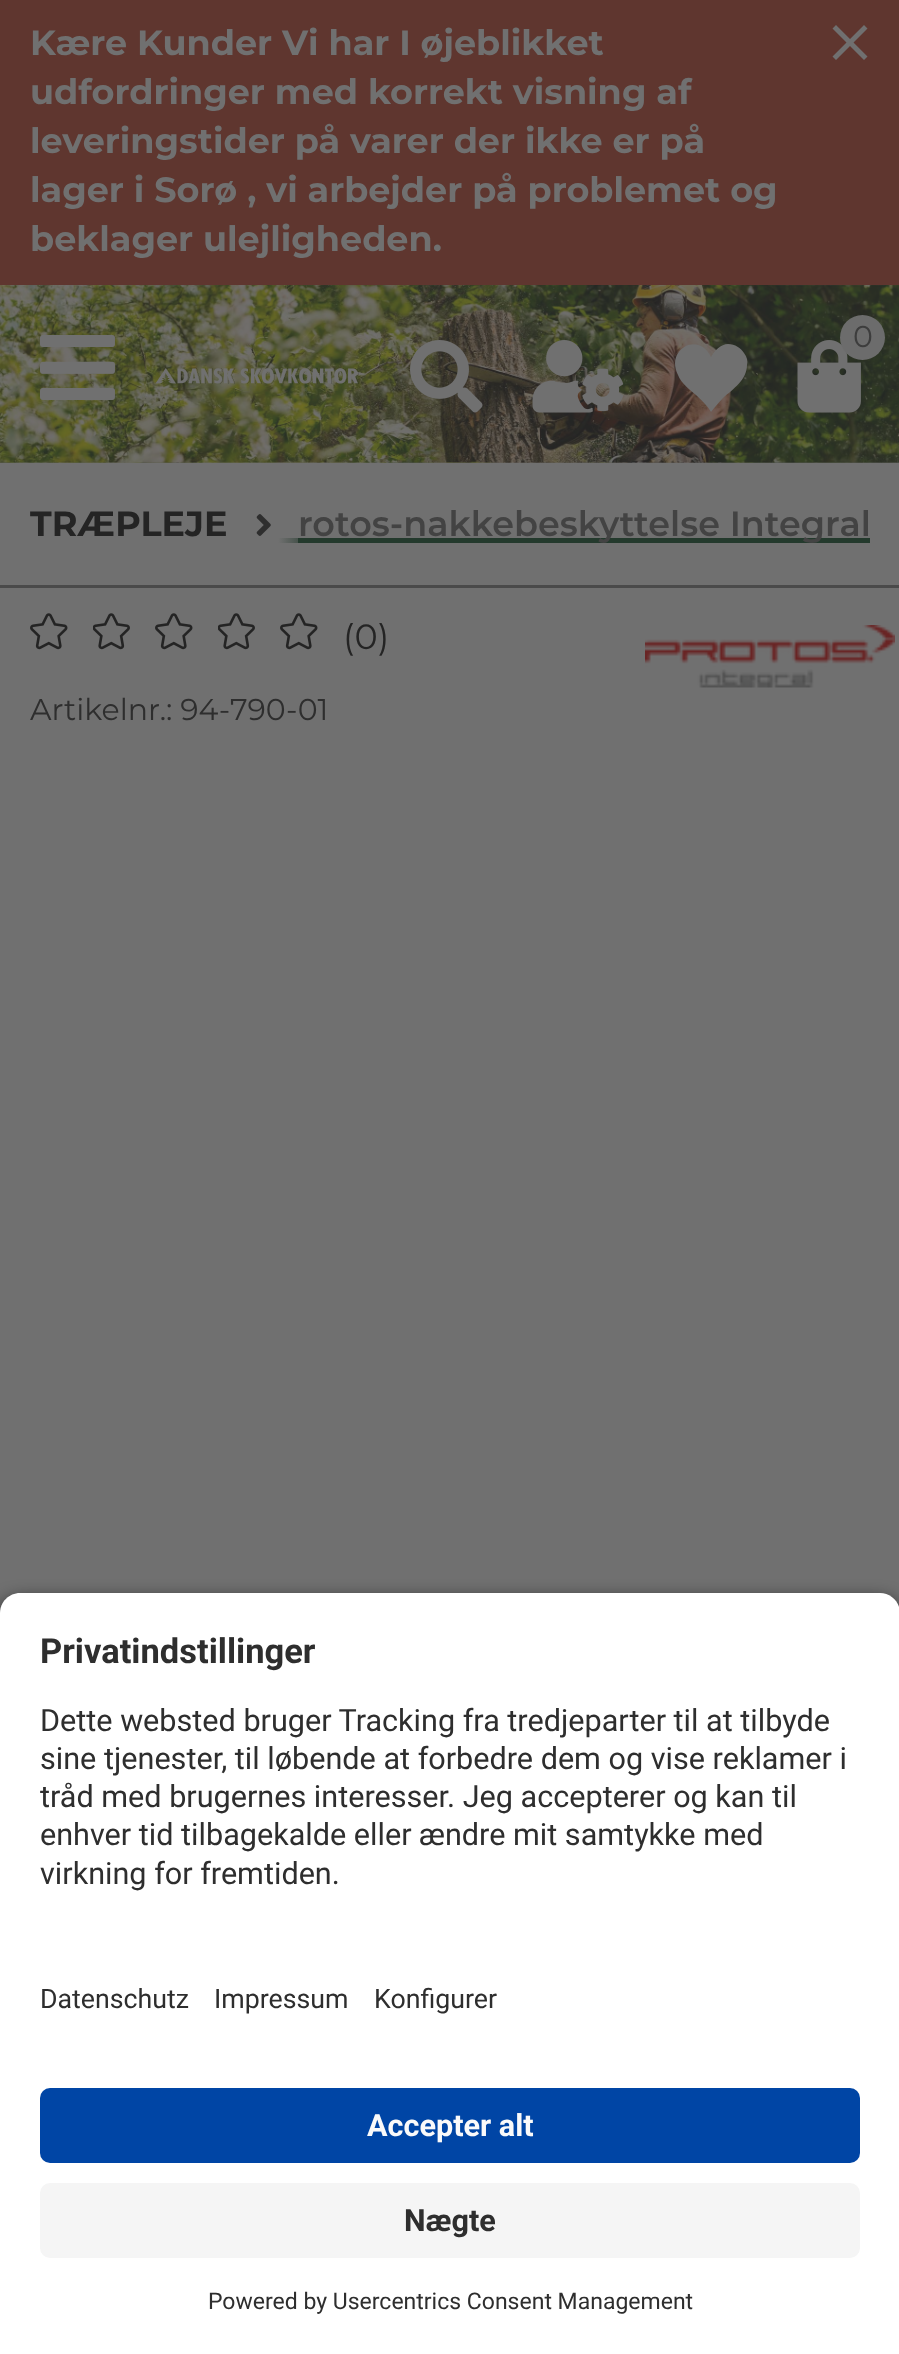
<svg xmlns="http://www.w3.org/2000/svg" width="899" height="2354" viewBox="0 0 899 2354">
  <defs>
    <linearGradient id="g1" gradientUnits="userSpaceOnUse" x1="228" y1="525" x2="298" y2="525"><stop offset="0" stop-color="#707070"/><stop offset="0.72" stop-color="#707070"/><stop offset="1" stop-color="#707070" stop-opacity="0.47"/></linearGradient>
  </defs>
  <rect width="100%" height="100%" fill="#707070"/>
  <path d="M0 0h899v285H0z" fill="#5f362f"/>
  <path d="M867.5 28.5L864 25L850 39L836 25L832.5 28.5L846.5 42.5L832.5 56.5L836 60L850 46L864 60L867.5 56.5L853.5 42.5Z" fill="#707070"/>
  <image x="0" y="462" width="899" height="1" href="img/1.png"/>
  <image x="0" y="285" width="899" height="178" href="img/2.png"/>
  <image x="40" y="335" width="75" height="65" href="img/3.png"/>
  <image x="155" y="368" width="204" height="16" href="img/4.png"/>
  <image x="797" y="340" width="64" height="73" href="img/5.png"/>
  <circle cx="862.5" cy="337.5" r="22.5" fill="#6c6c6c"/>
  <image x="410" y="340" width="73" height="73" href="img/6.png"/>
  <image x="532" y="340" width="92" height="73" href="img/7.png"/>
  <path d="M728 344C721 344 714 351 711 357C699 331 665 349 678 375C681 383 689 389 696 395C701 400 707 405 711 412C715 407 719 402 723 398C733 389 747 380 747 365C748 361 747 357 744 353C741 348 735 344 728 344Z" fill="#707070"/>
  <path d="M0 585h899v3H0z" fill="#4a4a4a"/>
  <path d="M273 538h597v5H273z" fill="#243a2d"/>
  <path d="M273 538h25v5H273z" fill="url(#g1)"/>
  <image x="256" y="514" width="15" height="22" href="img/8.png"/>
  <image x="30" y="613" width="38" height="37" href="img/9.png"/>
  <image x="93" y="613" width="37" height="37" href="img/10.png"/>
  <image x="155" y="613" width="38" height="37" href="img/9.png"/>
  <image x="218" y="613" width="37" height="37" href="img/10.png"/>
  <image x="280" y="613" width="38" height="37" href="img/9.png"/>
  <image x="645" y="625" width="250" height="63" href="img/11.png"/>
  <rect y="1600" width="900" height="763" rx="20" fill="#000000cc" filter="blur(9px)"/>
  <path d="M20 1593H880C891 1593 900 1602 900 1613V1945H0V1613C0 1602 9 1593 20 1593Z" fill="#fff"/>
  <path d="M0 1945h899v409H0z" fill="#fff"/>
  <rect x="40" y="2088" width="820" height="75" rx="10" fill="#0045a5"/>
  <rect x="40" y="2183" width="820" height="75" rx="10" fill="#f5f5f5"/>
  <g font-family="Montserrat" font-size="35" font-weight="bold" fill="#707070">
    <text x="30" y="55">Kære Kunder Vi har I øjeblikket</text>
    <text x="30" y="104">udfordringer med korrekt visning af</text>
    <text x="30" y="153">leveringstider på varer der ikke er på</text>
    <text x="30" y="202">lager i Sorø , vi arbejder på problemet og</text>
    <text x="30" y="251">beklager ulejligheden.</text>
  </g>
  <text x="853" y="347" font-family="Montserrat" font-size="30" fill="#3d3d3d">0</text>
  <text x="30" y="536" font-family="Montserrat" font-size="35" font-weight="bold" fill="#242424">TRÆPLEJE</text>
  <text x="298" y="536" font-family="Montserrat" font-size="35" font-weight="600" fill="#434343">rotos-nakkebeskyttelse Integral</text>
  <text x="343" y="649" font-family="Montserrat" font-size="35" fill="#242424">(0)</text>
  <text x="30" y="720" font-family="Montserrat" font-size="30" fill="#2e2e2e">Artikelnr.: 94-790-01</text>
  <text x="40" y="1663" font-family="Roboto" font-size="34.5" font-weight="bold" fill="#2e2e2e">Privatindstillinger</text>
  <g font-family="Roboto" font-size="30.6" fill="#2e2e2e">
    <text x="40" y="1731">Dette websted bruger Tracking fra tredjeparter til at tilbyde</text>
    <text x="40" y="1769">sine tjenester, til løbende at forbedre dem og vise reklamer i</text>
    <text x="40" y="1807">tråd med brugernes interesser. Jeg accepterer og kan til</text>
    <text x="40" y="1845">enhver tid tilbagekalde eller ændre mit samtykke med</text>
    <text x="40" y="1884">virkning for fremtiden.</text>
  </g>
  <g font-family="Roboto" font-size="26.75" fill="#2e2e2e">
    <text x="40" y="2008">Datenschutz</text>
    <text x="214" y="2008">Impressum</text>
    <text x="374" y="2008">Konfigurer</text>
  </g>
  <text x="367" y="2136" font-family="Roboto" font-size="30.6" font-weight="bold" fill="#fafafa">Accepter alt</text>
  <text x="404" y="2231" font-family="Roboto" font-size="30.6" font-weight="bold" fill="#2e2e2e">Nægte</text>
  <text x="208" y="2309" font-family="Roboto" font-size="23" fill="#2e2e2e">Powered by Usercentrics Consent Management</text>
</svg>
